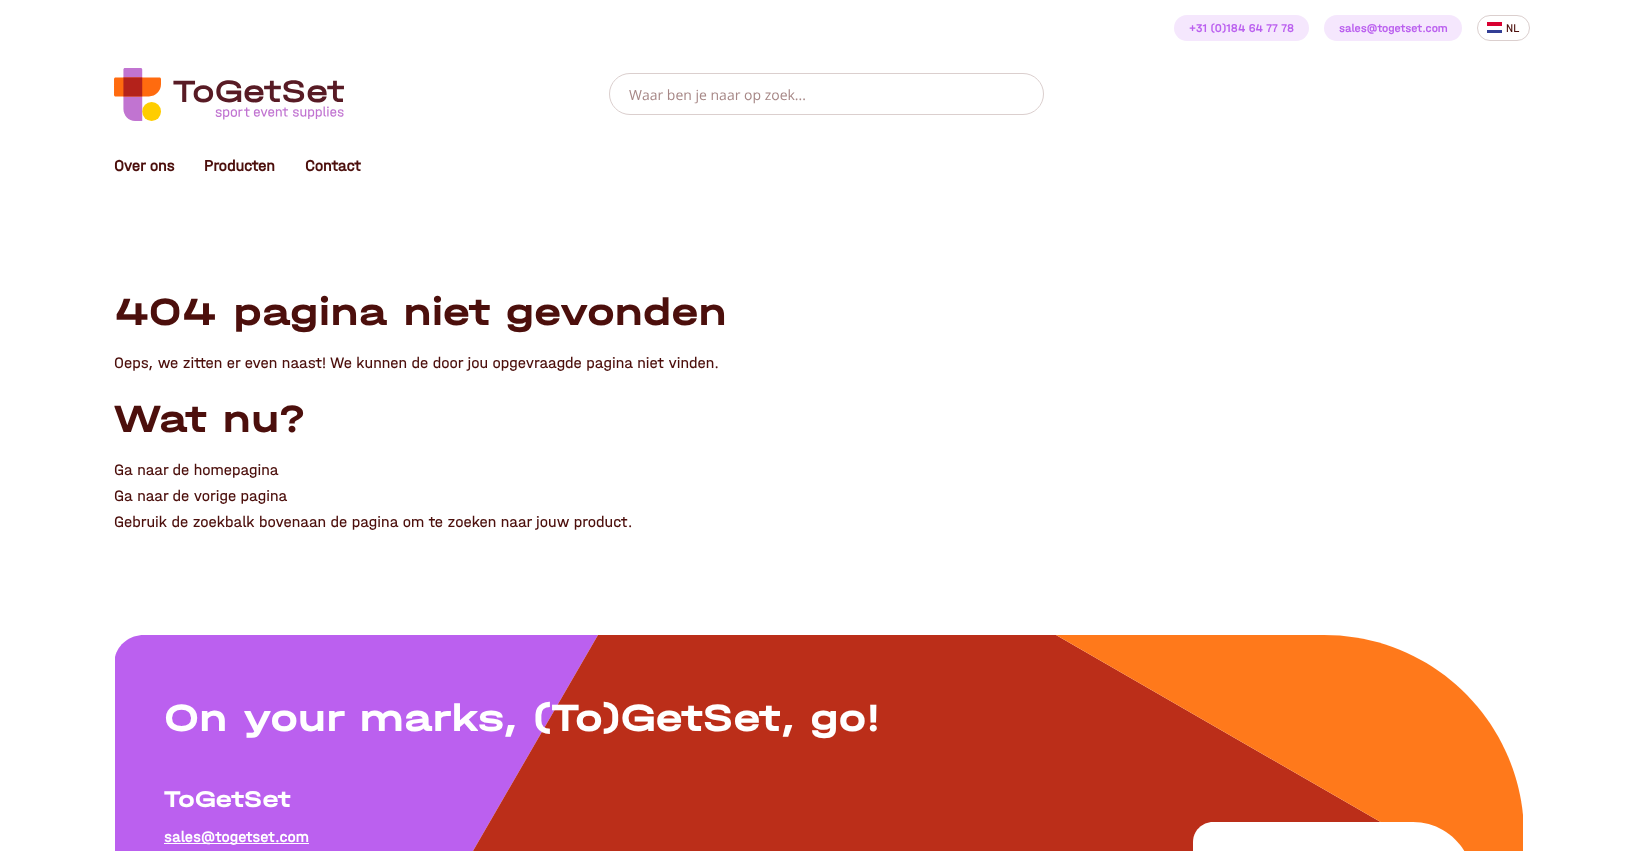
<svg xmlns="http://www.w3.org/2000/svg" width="1637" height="851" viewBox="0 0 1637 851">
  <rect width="100%" height="100%" fill="#fff"/>
  <rect x="1174" y="15" width="135" height="26" rx="13" fill="#f5e7fd"/>
  <rect x="1324" y="15" width="138" height="26" rx="13" fill="#f5e7fd"/>
  <rect x="1477.5" y="15.5" width="52" height="25" rx="12.5" fill="none" stroke="#dbcfce"/>
  <path d="M1487 30h15v3H1487z" fill="#323e95"/>
  <path d="M1487 22h15v4H1487z" fill="#d80031"/>
  <image x="114" y="68" width="230" height="53" href="img/1.png"/>
  <rect x="609.5" y="73.5" width="434" height="41" rx="20.5" fill="none" stroke="#dbcfce"/>
  <path d="M144 635H598L374 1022H144C130 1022 118 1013 115 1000V657C118 644 130 635 144 635Z" fill="#bb60ef"/>
  <path d="M1523 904L1056 635H598L374 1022H1494C1508 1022 1520 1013 1523 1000Z" fill="#bb2e19"/>
  <path d="M1056 635H1324C1428 635 1513 714 1523 815V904Z" fill="#ff791b"/>
  <path d="M164 843h145v1H164z" fill="#fff"/>
  <path d="M1213 822H1413C1446 822 1473 849 1473 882V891C1473 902 1464 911 1453 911H1213C1202 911 1193 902 1193 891V842C1193 831 1202 822 1213 822Z" fill="#fff"/>
  <g font-family="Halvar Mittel" font-size="12" font-weight="500" fill="#bb60ef">
    <text x="1189" y="32">+31 (0)184 64 77 78</text>
    <text x="1339" y="32">sales@togetset.com</text>
  </g>
  <text x="1506" y="32" font-family="Halvar Mittel" font-size="12" fill="#4c0f0c">NL</text>
  <text x="629" y="100" font-family="Open Sans" font-size="14" fill="#a68786">Waar ben je naar op zoek...</text>
  <g font-family="Halvar Mittel" font-size="16" font-weight="bold" fill="#4c0f0c">
    <text x="114" y="171">Over ons</text>
    <text x="204" y="171">Producten</text>
    <text x="305" y="171">Contact</text>
  </g>
  <text x="114" y="325" font-family="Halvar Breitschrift" font-size="40" font-weight="bold" fill="#4c0f0c">404 pagina niet gevonden</text>
  <text x="114" y="368" font-family="Halvar Mittel" font-size="16" fill="#4c0f0c">Oeps, we zitten er even naast! We kunnen de door jou opgevraagde pagina niet vinden.</text>
  <text x="114" y="432" font-family="Halvar Breitschrift" font-size="40" font-weight="bold" fill="#4c0f0c">Wat nu?</text>
  <g font-family="Halvar Mittel" font-size="16" fill="#4c0f0c">
    <text x="114" y="475">Ga naar de homepagina</text>
    <text x="114" y="501">Ga naar de vorige pagina</text>
    <text x="114" y="527">Gebruik de zoekbalk bovenaan de pagina om te zoeken naar jouw product.</text>
  </g>
  <text x="164" y="731" font-family="Halvar Breitschrift" font-size="40" font-weight="bold" fill="#fff">On your marks, (To)GetSet, go!</text>
  <text x="164" y="807" font-family="Halvar Breitschrift" font-size="24" font-weight="bold" fill="#fff">ToGetSet</text>
  <text x="164" y="842" font-family="Halvar Mittel" font-size="16" font-weight="500" fill="#fff">sales@togetset.com</text>
</svg>
